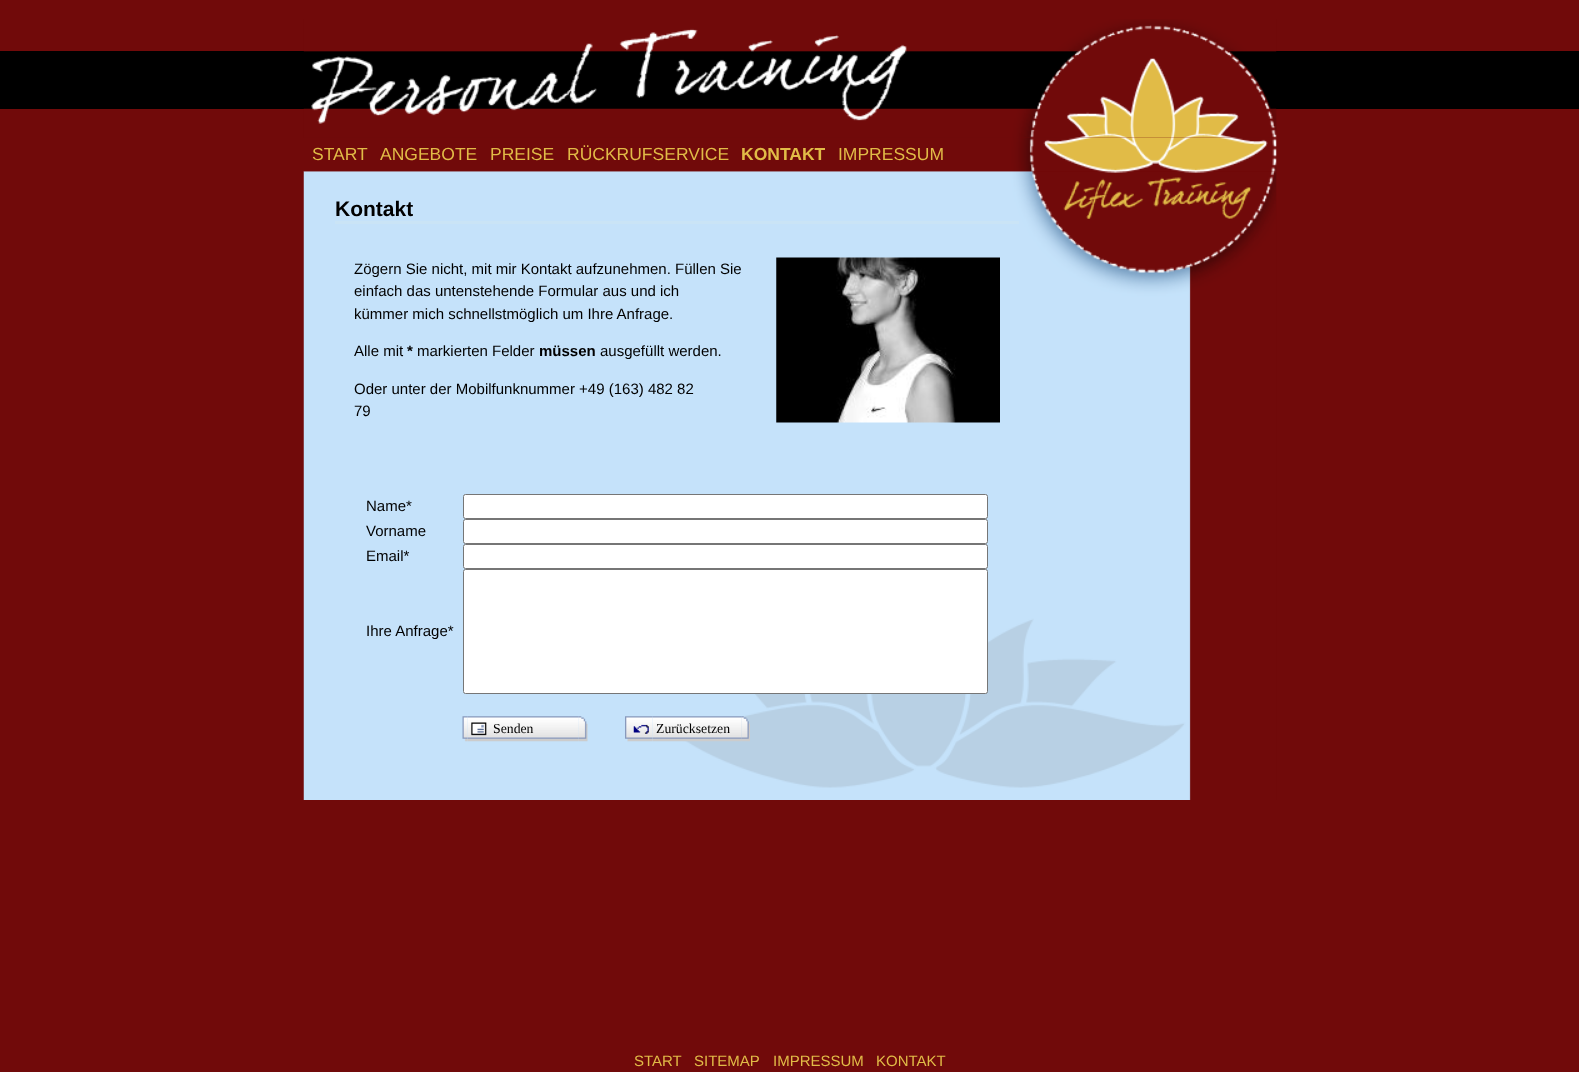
<svg xmlns="http://www.w3.org/2000/svg" width="1579" height="1072" viewBox="0 0 1579 1072">
  <rect width="100%" height="100%" fill="#710a0a"/>
  <path d="M0 51h1579v58H0z" fill="#000"/>
  <image x="303" y="171" width="974" height="629" href="img/1.png"/>
  <image x="303" y="19" width="974" height="119" href="img/2.png"/>
  <image x="304" y="137" width="973" height="35" href="img/3.png"/>
  <path d="M335 221h684v3H335z" fill="#cae4f6"/>
  <image x="776" y="257" width="224" height="166" href="img/4.png"/>
  <rect x="463.5" y="494.5" width="524" height="24" rx="2" fill="#fff" stroke="#767676"/>
  <rect x="463.5" y="519.5" width="524" height="24" rx="2" fill="#fff" stroke="#767676"/>
  <rect x="463.5" y="544.5" width="524" height="24" rx="2" fill="#fff" stroke="#767676"/>
  <rect x="463.5" y="569.5" width="524" height="124" rx="2" fill="#fff" stroke="#767676"/>
  <image x="467" y="716" width="23" height="26" href="img/6.png"/>
  <image x="462" y="716" width="6" height="26" href="img/5.png"/>
  <image x="471" y="722" width="16" height="14" href="img/7.png"/>
  <image x="490" y="716" width="89" height="26" href="img/8.png"/>
  <image x="578" y="716" width="10" height="26" href="img/9.png"/>
  <image x="625" y="716" width="5" height="26" href="img/10.png"/>
  <image x="630" y="716" width="23" height="26" href="img/11.png"/>
  <image x="633" y="724" width="16" height="10" href="img/12.png"/>
  <image x="652" y="716" width="90" height="26" href="img/13.png"/>
  <image x="741" y="716" width="9" height="26" href="img/14.png"/>
  <g font-family="Liberation Sans" font-size="17.5" fill="#e1bb47">
    <text x="312" y="160">START</text>
    <text x="380" y="160">ANGEBOTE</text>
    <text x="490" y="160">PREISE</text>
    <text x="567" y="160">RÜCKRUFSERVICE</text>
  </g>
  <text x="741" y="160" font-family="Liberation Sans" font-size="17.5" font-weight="bold" fill="#e1bb47">KONTAKT</text>
  <text x="838" y="160" font-family="Liberation Sans" font-size="17.5" fill="#e1bb47">IMPRESSUM</text>
  <text x="335" y="216" font-family="Liberation Sans" font-size="21" font-weight="bold" fill="#000">Kontakt</text>
  <g font-family="Liberation Sans" font-size="15" fill="#000">
    <text x="354" y="274">Zögern Sie nicht, mit mir Kontakt aufzunehmen. Füllen Sie</text>
    <text x="354" y="296">einfach das untenstehende Formular aus und ich</text>
    <text x="354" y="319">kümmer mich schnellstmöglich um Ihre Anfrage.</text>
    <text x="354" y="356">Alle mit</text>
  </g>
  <text x="407" y="356" font-family="Liberation Sans" font-size="15" font-weight="bold" fill="#000">*</text>
  <text x="417" y="356" font-family="Liberation Sans" font-size="15" fill="#000">markierten Felder</text>
  <text x="539" y="356" font-family="Liberation Sans" font-size="15" font-weight="bold" fill="#000">müssen</text>
  <g font-family="Liberation Sans" font-size="15" fill="#000">
    <text x="600" y="356">ausgefüllt werden.</text>
    <text x="354" y="394">Oder unter der Mobilfunknummer +49 (163) 482 82</text>
    <text x="354" y="416">79</text>
    <text x="366" y="511">Name*</text>
    <text x="366" y="536">Vorname</text>
    <text x="366" y="561">Email*</text>
    <text x="366" y="636">Ihre Anfrage*</text>
  </g>
  <g font-family="Liberation Serif" font-size="13.75" fill="#000">
    <text x="493" y="733">Senden</text>
    <text x="656" y="733">Zurücksetzen</text>
  </g>
  <g font-family="Liberation Sans" font-size="15" fill="#e1bb47">
    <text x="634" y="1066">START</text>
    <text x="694" y="1066">SITEMAP</text>
    <text x="773" y="1066">IMPRESSUM</text>
    <text x="876" y="1066">KONTAKT</text>
  </g>
</svg>
